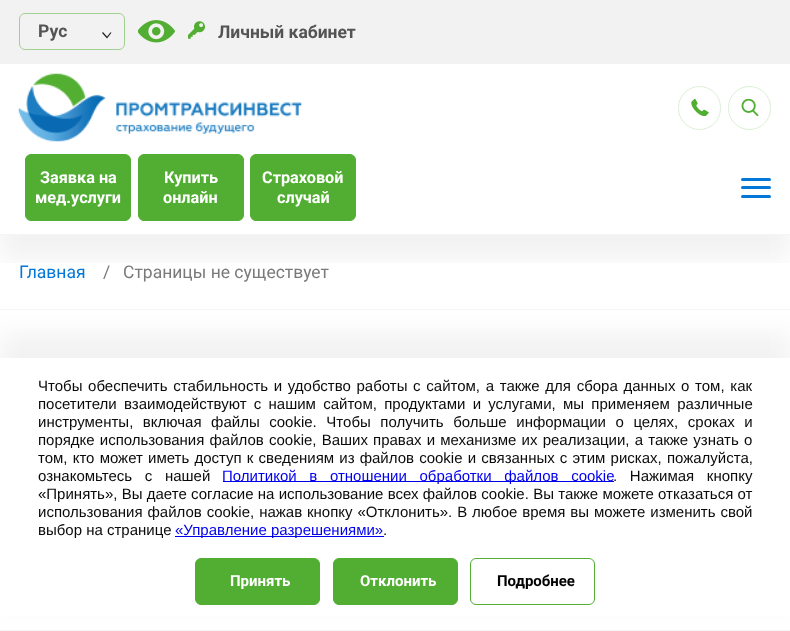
<svg xmlns="http://www.w3.org/2000/svg" width="790" height="631" viewBox="0 0 790 631">
  <defs>
    <clipPath id="clip1"><path d="M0 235h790v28H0z"/></clipPath>
  </defs>
  <rect width="100%" height="100%" fill="#fff"/>
  <g clip-path="url(#clip1)">
    <path d="M0 86h790v174H0z" fill="#0000000d" filter="blur(12.5px)"/>
  </g>
  <path d="M0 0h790v64H0z" fill="#f2f2f2"/>
  <rect x="19.5" y="13.5" width="105" height="36" rx="5.5" fill="none" stroke="#a2d092"/>
  <path d="M102.5 32.5L107 37.5L111 32.5" fill="none" stroke="#222" stroke-width="1.2"/>
  <image x="138" y="20" width="37" height="23" href="img/1.png"/>
  <image x="188" y="21" width="17" height="18" href="img/2.png"/>
  <path d="M0 234h790v1H0z" fill="#f5f5f5"/>
  <image x="18" y="73" width="284" height="69" href="img/3.png"/>
  <rect x="678.5" y="86.5" width="42" height="43" rx="21" fill="none" stroke="#dcefd6"/>
  <image x="691" y="99" width="18" height="17" href="img/4.png"/>
  <rect x="728.5" y="86.5" width="42" height="43" rx="21" fill="none" stroke="#dcefd6"/>
  <image x="741" y="99" width="18" height="17" href="img/5.png"/>
  <rect x="25.5" y="154.5" width="105" height="66" rx="5.5" fill="#52ae32" stroke="#52ae32"/>
  <rect x="138.5" y="154.5" width="105" height="66" rx="5.5" fill="#52ae32" stroke="#52ae32"/>
  <rect x="250.5" y="154.5" width="105" height="66" rx="5.5" fill="#52ae32" stroke="#52ae32"/>
  <rect x="741" y="178" width="30" height="3" rx="1.5" fill="#0177d7"/>
  <rect x="741" y="186" width="30" height="3" rx="1.5" fill="#0177d7"/>
  <rect x="741" y="195" width="30" height="3" rx="1.5" fill="#0177d7"/>
  <path d="M0 309h790v1H0z" fill="#f5f5f5"/>
  <path d="M0 333h790v273H0z" fill="#0000000d" filter="blur(12.5px)"/>
  <path d="M0 358h790v258H0z" fill="#fff"/>
  <path d="M0 630h790v1H0z" fill="#f5f5f5"/>
  <path d="M223 481h391v1H223z" fill="#00e"/>
  <path d="M175 536h209v1H175z" fill="#00e"/>
  <rect x="195.5" y="558.5" width="124" height="46" rx="5.5" fill="#52ae32" stroke="#52ae32"/>
  <rect x="333.5" y="558.5" width="124" height="46" rx="5.5" fill="#52ae32" stroke="#52ae32"/>
  <rect x="470.5" y="558.5" width="124" height="46" rx="5.5" fill="none" stroke="#52ae32"/>
  <g font-family="Roboto" font-size="17.5" font-weight="bold" fill="#545454">
    <text x="38" y="37">Руc</text>
    <text x="218" y="38">Личный кабинет</text>
  </g>
  <g font-family="Roboto" font-size="16.25" font-weight="bold" fill="#fff">
    <text x="40" y="183">Заявка на</text>
    <text x="35" y="203">мед.услуги</text>
    <text x="164" y="183">Купить</text>
    <text x="163" y="203">онлайн</text>
    <text x="262" y="183">Страховой</text>
    <text x="277" y="203">случай</text>
  </g>
  <text x="19" y="278" font-family="Roboto" font-size="17.5" fill="#0177d7">Главная</text>
  <g font-family="Roboto" font-size="17.5" fill="#7a7a7a">
    <text x="103" y="278">/</text>
    <text x="123" y="278">Страницы не существует</text>
  </g>
  <g font-family="Liberation Sans" font-size="15" fill="#0a0a0a">
    <text x="38" y="391" word-spacing="1.5">Чтобы обеспечить стабильность и удобство работы с сайтом, а также для сбора данных о том, как</text>
    <text x="38" y="409" word-spacing="3.1">посетители взаимодействуют с нашим сайтом, продуктами и услугами, мы применяем различные</text>
    <text x="38" y="427" word-spacing="5.4">инструменты, включая файлы cookie. Чтобы получить больше информации о целях, сроках и</text>
    <text x="38" y="445" word-spacing="1">порядке использования файлов cookie, Ваших правах и механизме их реализации, а также узнать о</text>
    <text x="38" y="463" word-spacing="1">том, кто может иметь доступ к сведениям из файлов cookie и связанных с этим рисках, пожалуйста,</text>
    <text x="38" y="481" word-spacing="8.5">ознакомьтесь с нашей</text>
  </g>
  <text x="222" y="481" word-spacing="8.5" font-family="Liberation Sans" font-size="15" fill="#00e">Политикой в отношении обработки файлов cookie</text>
  <g font-family="Liberation Sans" font-size="15" fill="#0a0a0a">
    <text x="613" y="481" word-spacing="8.5">. Нажимая кнопку</text>
    <text x="38" y="499" word-spacing="0.1">«Принять», Вы даете согласие на использование всех файлов cookie. Вы также можете отказаться от</text>
    <text x="38" y="517" word-spacing="0.75">использования файлов cookie, нажав кнопку «Отклонить». В любое время вы можете изменить свой</text>
    <text x="38" y="535">выбор на странице</text>
  </g>
  <text x="175" y="535" font-family="Liberation Sans" font-size="15" fill="#00e">«Управление разрешениями»</text>
  <text x="383" y="535" font-family="Liberation Sans" font-size="15" fill="#0a0a0a">.</text>
  <g font-family="Roboto" font-size="15" font-weight="bold" fill="#fff">
    <text x="230" y="586">Принять</text>
    <text x="360" y="586">Отклонить</text>
  </g>
  <text x="497" y="586" font-family="Roboto" font-size="15" font-weight="bold" fill="#000">Подробнее</text>
</svg>
